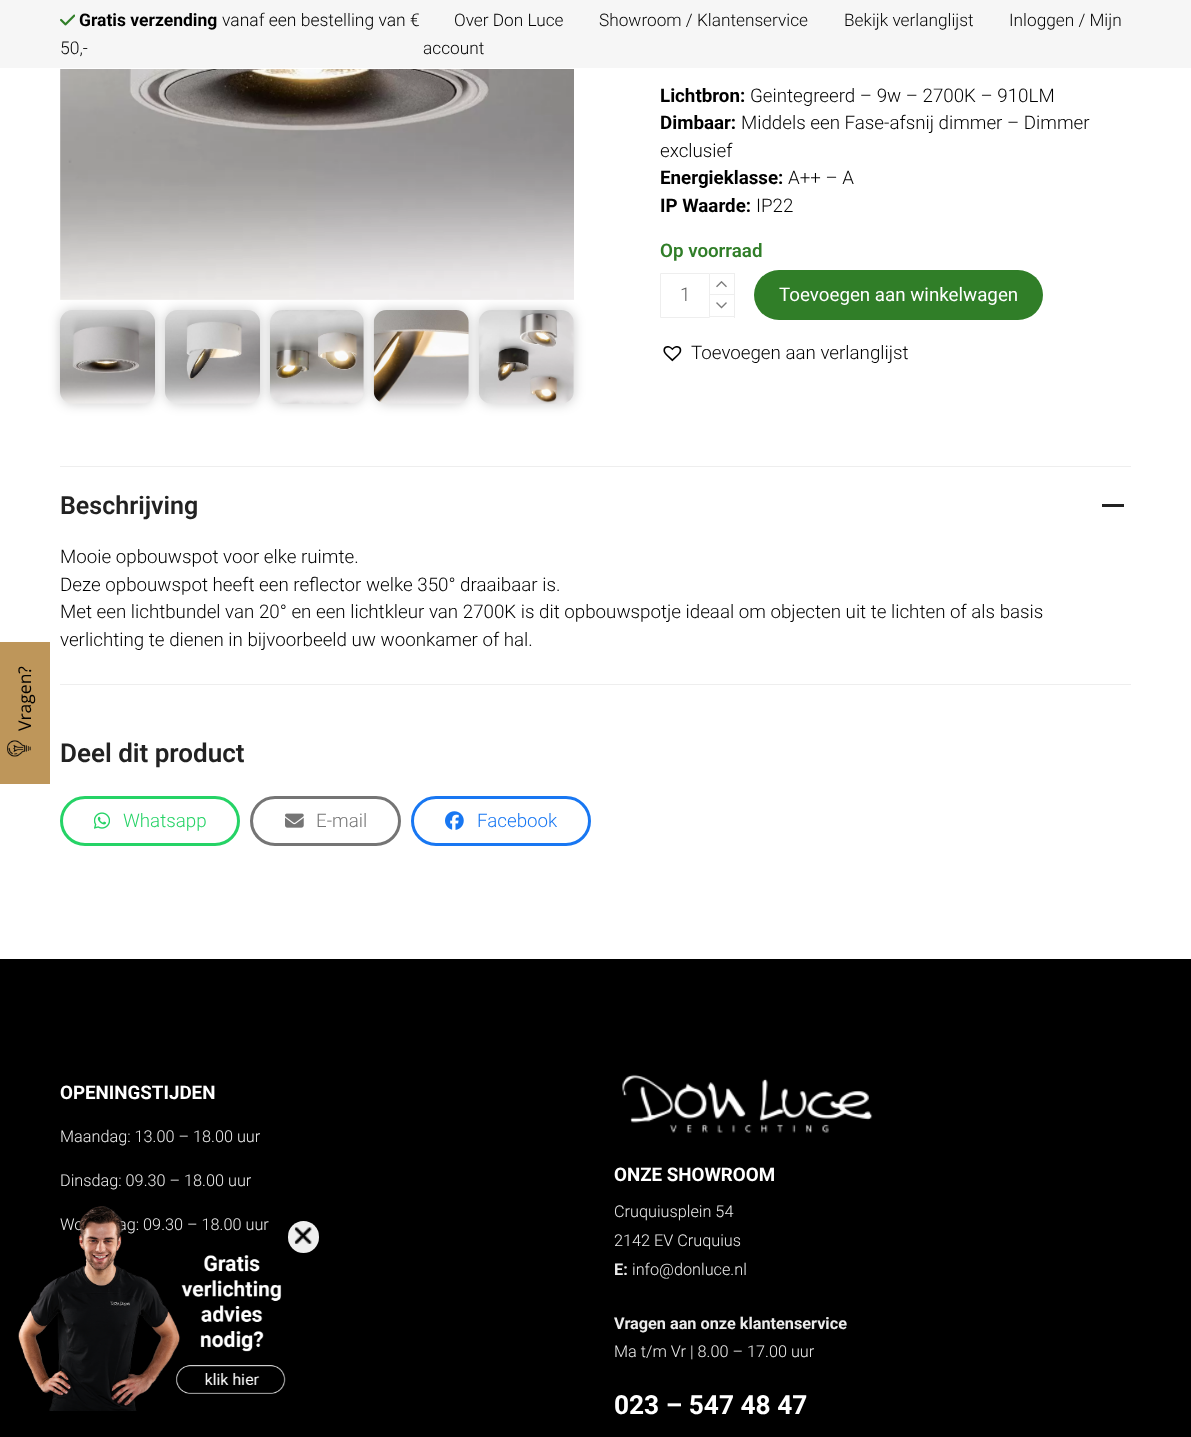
<svg xmlns="http://www.w3.org/2000/svg" width="1191" height="1437" viewBox="0 0 1191 1437">
  <rect width="100%" height="100%" fill="#fff"/>
  <path d="M0 642h50v142H0z" fill="#be965a"/>
  <image x="7" y="740" width="24" height="17" href="img/1.png"/>
  <path d="M0 0h1191v68H0z" fill="#f6f6f6"/>
  <image x="60" y="14" width="15" height="12" href="img/2.png"/>
  <rect x="60" y="310" width="95" height="94" rx="13" fill="#00000033" filter="blur(6px)"/>
  <image x="60" y="310" width="95" height="94" href="img/4.png"/>
  <rect x="165" y="310" width="95" height="94" rx="13" fill="#00000033" filter="blur(6px)"/>
  <image x="165" y="310" width="95" height="94" href="img/5.png"/>
  <rect x="270" y="310" width="94" height="94" rx="13" fill="#00000033" filter="blur(6px)"/>
  <image x="270" y="310" width="94" height="94" href="img/6.png"/>
  <rect x="374" y="310" width="95" height="94" rx="13" fill="#00000033" filter="blur(6px)"/>
  <image x="373" y="310" width="96" height="94" href="img/7.png"/>
  <rect x="479" y="310" width="95" height="94" rx="13" fill="#00000033" filter="blur(6px)"/>
  <image x="60" y="69" width="514" height="231" href="img/3.png"/>
  <image x="479" y="310" width="95" height="94" href="img/8.png"/>
  <path d="M660.5 273.5h49v44H660.5z" fill="none" stroke="#eee"/>
  <path d="M710 273h25v1H710z" fill="#eee"/>
  <path d="M734 273h1v45H734z" fill="#eee"/>
  <path d="M710 316h25v1H710z" fill="#eee"/>
  <image x="716" y="281" width="11" height="7" href="img/9.png"/>
  <path d="M710 294h24v1H710z" fill="#eee"/>
  <image x="716" y="302" width="11" height="7" href="img/10.png"/>
  <rect x="754" y="270" width="289" height="50" rx="25" fill="#307e28"/>
  <image x="663" y="346" width="19" height="16" href="img/11.png"/>
  <path d="M60 466h1071v1H60z" fill="#eee"/>
  <path d="M60 684h1071v1H60z" fill="#eee"/>
  <path d="M1102 504h22v3H1102z" fill="#222"/>
  <rect x="61.5" y="797.5" width="177" height="47" rx="23.5" fill="none" stroke="#25d366" stroke-width="3"/>
  <image x="94" y="812" width="16" height="17" href="img/12.png"/>
  <rect x="251.5" y="797.5" width="148" height="47" rx="23.5" fill="none" stroke="#757575" stroke-width="3"/>
  <image x="285" y="813" width="19" height="15" href="img/13.png"/>
  <rect x="412.5" y="797.5" width="177" height="47" rx="23.5" fill="none" stroke="#1877f2" stroke-width="3"/>
  <image x="445" y="811" width="19" height="19" href="img/14.png"/>
  <path d="M0 959h1191v478H0z" fill="#000"/>
  <image x="622" y="1074" width="251" height="59" href="img/15.png"/>
  <rect x="288" y="1221" width="31" height="32" rx="15.5" fill="#efefef"/>
  <image x="294" y="1227" width="18" height="17" href="img/17.png"/>
  <text x="31" y="731" transform="rotate(-90 31 731)" font-family="Open Sans" font-size="17.5" fill="#000">Vragen?</text>
  <text x="79" y="26" font-family="Roboto" font-size="17.5" font-weight="bold" fill="#000">Gratis verzending</text>
  <g font-family="Roboto" font-size="17.5" font-weight="300" fill="#000">
    <text x="222" y="26">vanaf een bestelling van €</text>
    <text x="60" y="54">50,-</text>
  </g>
  <g font-family="Roboto" font-size="17.25" font-weight="300" fill="#000">
    <text x="454" y="26">Over Don Luce</text>
    <text x="599" y="26">Showroom / Klantenservice</text>
    <text x="844" y="26">Bekijk verlanglijst</text>
    <text x="1009" y="26">Inloggen / Mijn</text>
    <text x="423" y="54">account</text>
  </g>
  <text x="660" y="102" font-family="Roboto" font-size="18.75" font-weight="bold" fill="#000">Lichtbron:</text>
  <text x="750" y="102" font-family="Roboto" font-size="18.75" font-weight="300" fill="#000">Geintegreerd – 9w – 2700K – 910LM</text>
  <text x="660" y="129" font-family="Roboto" font-size="18.75" font-weight="bold" fill="#000">Dimbaar:</text>
  <g font-family="Roboto" font-size="18.75" font-weight="300" fill="#000">
    <text x="741" y="129">Middels een Fase-afsnij dimmer – Dimmer</text>
    <text x="660" y="157">exclusief</text>
  </g>
  <text x="660" y="184" font-family="Roboto" font-size="18.75" font-weight="bold" fill="#000">Energieklasse:</text>
  <text x="788" y="184" font-family="Roboto" font-size="18.75" font-weight="300" fill="#000">A++ – A</text>
  <text x="660" y="212" font-family="Roboto" font-size="18.75" font-weight="bold" fill="#000">IP Waarde:</text>
  <text x="756" y="212" font-family="Roboto" font-size="18.75" font-weight="300" fill="#000">IP22</text>
  <text x="660" y="257" font-family="Roboto" font-size="18.75" font-weight="600" fill="#307e28">Op voorraad</text>
  <text x="680" y="301" font-family="Roboto" font-size="18.75" font-weight="300" fill="#616161">1</text>
  <text x="779" y="301" font-family="Roboto" font-size="18.75" fill="#fff">Toevoegen aan winkelwagen</text>
  <text x="691" y="359" font-family="Roboto" font-size="18.75" font-weight="300" fill="#000">Toevoegen aan verlanglijst</text>
  <text x="60" y="514" font-family="Roboto" font-size="25" font-weight="600" fill="#222">Beschrijving</text>
  <g font-family="Roboto" font-size="18.75" font-weight="300" fill="#000">
    <text x="60" y="563">Mooie opbouwspot voor elke ruimte.</text>
    <text x="60" y="591">Deze opbouwspot heeft een reflector welke 350° draaibaar is.</text>
    <text x="60" y="618">Met een lichtbundel van 20° en een lichtkleur van 2700K is dit opbouwspotje ideaal om objecten uit te lichten of als basis</text>
    <text x="60" y="646">verlichting te dienen in bijvoorbeeld uw woonkamer of hal.</text>
  </g>
  <text x="60" y="762" font-family="Roboto" font-size="26" font-weight="600" fill="#222">Deel dit product</text>
  <text x="123" y="827" font-family="Roboto" font-size="18.75" font-weight="300" fill="#25d366">Whatsapp</text>
  <text x="316" y="827" font-family="Roboto" font-size="18.75" font-weight="300" fill="#757575">E-mail</text>
  <text x="477" y="827" font-family="Roboto" font-size="18.75" font-weight="300" fill="#1877f2">Facebook</text>
  <text x="60" y="1099" font-family="Roboto" font-size="18.75" font-weight="bold" fill="#fff">OPENINGSTIJDEN</text>
  <g font-family="Roboto" font-size="16.25" font-weight="300" fill="#ebebeb">
    <text x="60" y="1142">Maandag: 13.00 – 18.00 uur</text>
    <text x="60" y="1186">Dinsdag: 09.30 – 18.00 uur</text>
    <text x="60" y="1230">Wo</text>
    <text x="118" y="1230">ag: 09.30 – 18.00 uur</text>
  </g>
  <text x="614" y="1181" font-family="Roboto" font-size="18.75" font-weight="bold" fill="#fff">ONZE SHOWROOM</text>
  <g font-family="Roboto" font-size="16.25" font-weight="300" fill="#ebebeb">
    <text x="614" y="1217">Cruquiusplein 54</text>
    <text x="614" y="1246">2142 EV Cruquius</text>
  </g>
  <text x="614" y="1275" font-family="Roboto" font-size="16.25" font-weight="bold" fill="#ebebeb">E:</text>
  <text x="632" y="1275" font-family="Roboto" font-size="16.25" font-weight="300" fill="#ebebeb">info@donluce.nl</text>
  <text x="614" y="1329" font-family="Roboto" font-size="16.25" font-weight="bold" fill="#ebebeb">Vragen aan onze klantenservice</text>
  <text x="614" y="1357" font-family="Roboto" font-size="16.25" font-weight="300" fill="#ebebeb">Ma t/m Vr | 8.00 – 17.00 uur</text>
  <text x="614" y="1414" font-family="Roboto" font-size="26.25" font-weight="bold" fill="#fff">023 – 547 48 47</text>
  <image x="18" y="1206" width="268" height="205" href="img/16.png"/>
</svg>
